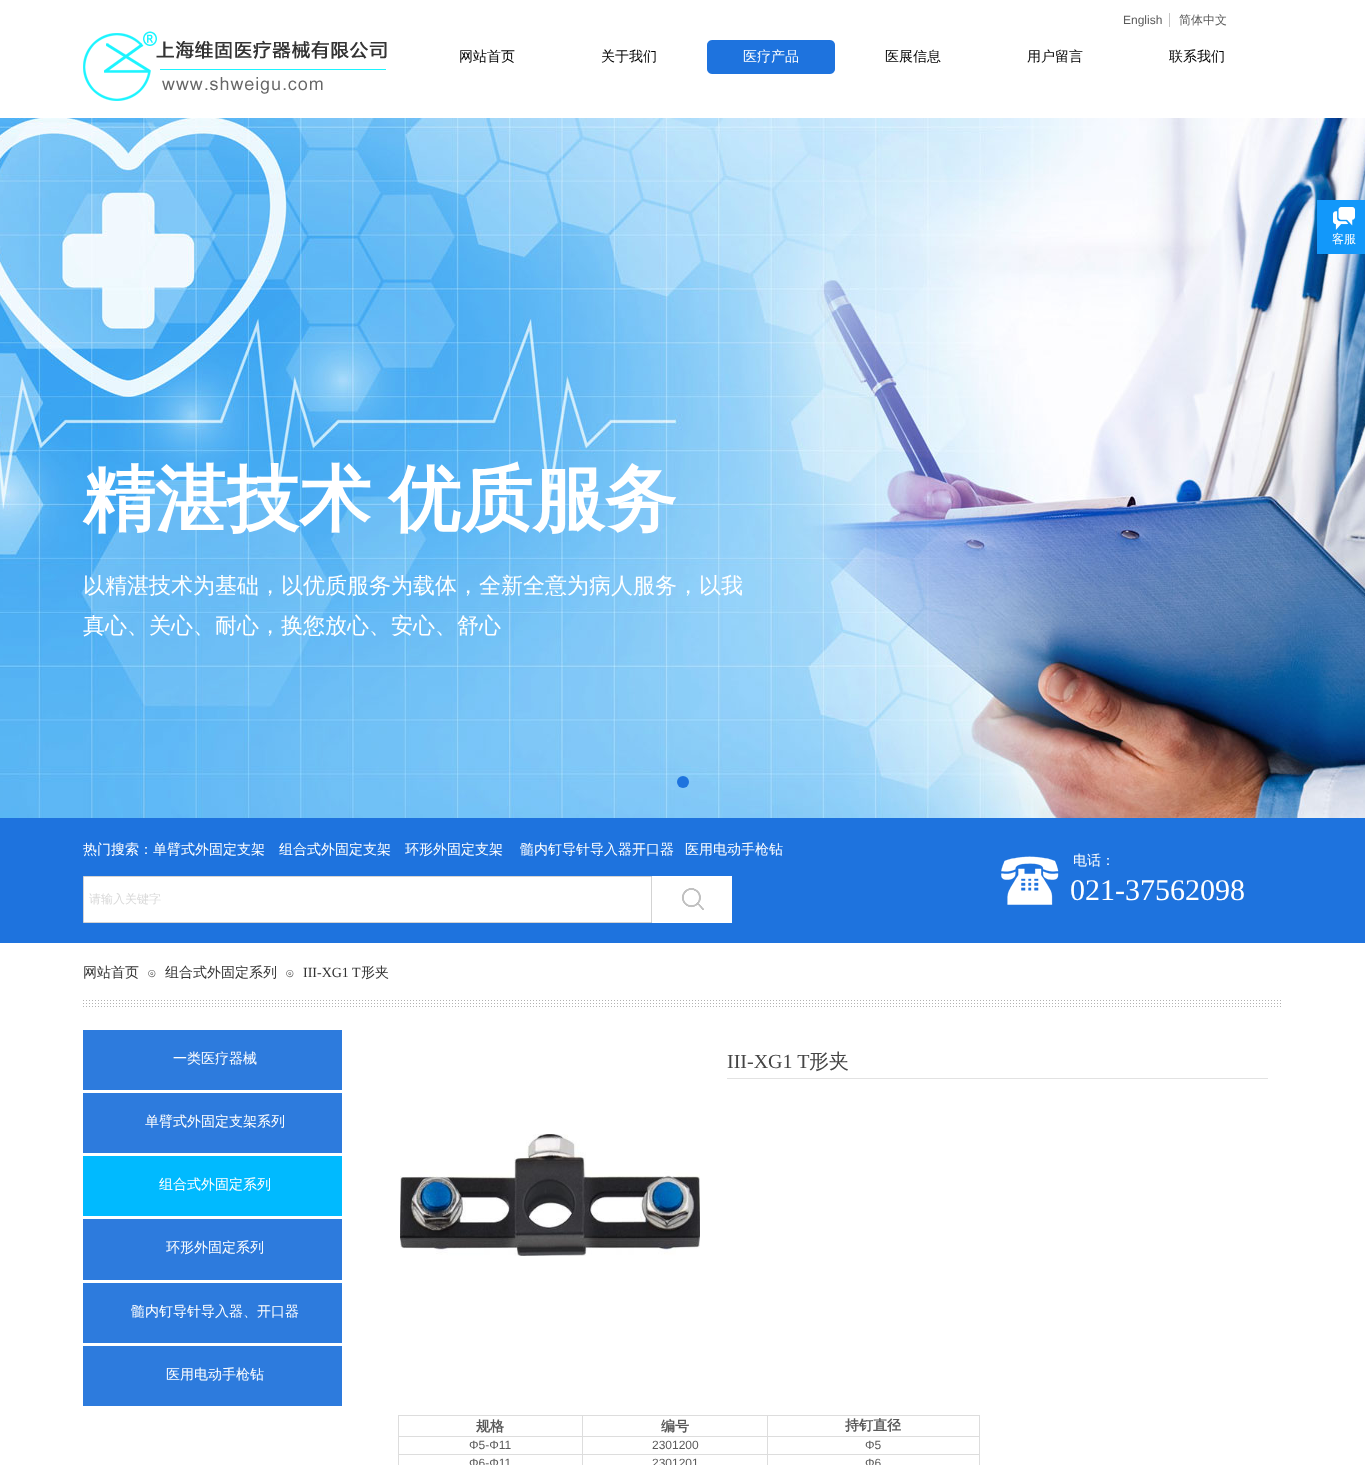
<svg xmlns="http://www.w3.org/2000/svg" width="1365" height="1465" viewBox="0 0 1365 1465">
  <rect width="100%" height="100%" fill="#fff"/>
  <path d="M1169 13h1v14H1169z" fill="#c6c6c6"/>
  <image x="83" y="31" width="304" height="70" href="img/1.png"/>
  <image x="707" y="40" width="128" height="34" href="img/2.png"/>
  <image x="0" y="118" width="1365" height="700" href="img/3.png"/>
  <circle cx="683" cy="782" r="6" fill="#1e73de"/>
  <path d="M0 818h1365v125H0z" fill="#1e73de"/>
  <path d="M83.5 876.5h568v46H83.5z" fill="#fff" stroke="#d3d3d3"/>
  <image x="652" y="876" width="80" height="47" href="img/4.png"/>
  <image x="1001" y="856" width="58" height="49" href="img/5.png"/>
  <image x="83" y="1000" width="1198" height="7" href="img/6.png"/>
  <path d="M83 1030h259v60H83z" fill="#2d7bdd"/>
  <path d="M83 1093h259v60H83z" fill="#2d7bdd"/>
  <path d="M83 1156h259v60H83z" fill="#00baff"/>
  <path d="M83 1219h259v61H83z" fill="#2d7bdd"/>
  <path d="M83 1283h259v60H83z" fill="#2d7bdd"/>
  <path d="M83 1346h259v60H83z" fill="#2d7bdd"/>
  <path d="M727 1078h541v1H727z" fill="#e2e2e2"/>
  <image x="400" y="1134" width="300" height="122" href="img/7.png"/>
  <path d="M767 1415h213v1H767z" fill="#ddd"/>
  <path d="M767 1436h213v1H767z" fill="#ddd"/>
  <path d="M767 1454h213v1H767z" fill="#ddd"/>
  <path d="M767 1454h1v11H767z" fill="#ddd"/>
  <path d="M582 1454h186v1H582z" fill="#ddd"/>
  <path d="M767 1436h1v19H767z" fill="#ddd"/>
  <path d="M582 1436h186v1H582z" fill="#ddd"/>
  <path d="M767 1415h1v22H767z" fill="#ddd"/>
  <path d="M582 1415h186v1H582z" fill="#ddd"/>
  <path d="M582 1454h1v11H582z" fill="#ddd"/>
  <path d="M398 1454h185v1H398z" fill="#ddd"/>
  <path d="M582 1436h1v19H582z" fill="#ddd"/>
  <path d="M398 1436h185v1H398z" fill="#ddd"/>
  <path d="M582 1415h1v22H582z" fill="#ddd"/>
  <path d="M398 1415h185v1H398z" fill="#ddd"/>
  <path d="M398 1454h1v11H398z" fill="#ddd"/>
  <path d="M398 1436h1v19H398z" fill="#ddd"/>
  <path d="M398 1415h1v22H398z" fill="#ddd"/>
  <path d="M979 1454h1v11H979z" fill="#ddd"/>
  <path d="M979 1436h1v19H979z" fill="#ddd"/>
  <path d="M979 1415h1v22H979z" fill="#ddd"/>
  <path d="M1317 200h48v54H1317z" fill="#1298fa"/>
  <image x="1333" y="207" width="22" height="23" href="img/8.png"/>
  <text x="1123" y="24" font-family="Liberation Sans" font-size="12" fill="#5a5a5a">English</text>
  <text x="1179" y="24" font-family="WenQuanYi Zen Hei" font-size="12" font-weight="500" fill="#5a5a5a">简体中文</text>
  <g font-family="WenQuanYi Zen Hei" font-size="14" font-weight="500" fill="#000">
    <text x="459" y="61">网站首页</text>
    <text x="601" y="61">关于我们</text>
  </g>
  <text x="743" y="61" font-family="WenQuanYi Zen Hei" font-size="14" font-weight="500" fill="#fff">医疗产品</text>
  <g font-family="WenQuanYi Zen Hei" font-size="14" font-weight="500" fill="#000">
    <text x="885" y="61">医展信息</text>
    <text x="1027" y="61">用户留言</text>
    <text x="1169" y="61">联系我们</text>
  </g>
  <text x="83" y="524" word-spacing="-4" font-family="WenQuanYi Zen Hei" font-size="72" font-weight="bold" fill="#fff">精湛技术 优质服务</text>
  <g font-family="WenQuanYi Zen Hei" font-size="22" font-weight="500" fill="#fff">
    <text x="83" y="593">以精湛技术为基础，以优质服务为载体，全新全意为病人服务，以我</text>
    <text x="83" y="633">真心、关心、耐心，换您放心、安心、舒心</text>
  </g>
  <g font-family="WenQuanYi Zen Hei" font-size="14" font-weight="500" fill="#fff">
    <text x="83" y="854">热门搜索：单臂式外固定支架</text>
    <text x="279" y="854">组合式外固定支架</text>
    <text x="405" y="854">环形外固定支架</text>
    <text x="520" y="854">髓内钉导针导入器开口器</text>
    <text x="685" y="854">医用电动手枪钻</text>
    <text x="1073" y="865">电话：</text>
  </g>
  <text x="89" y="903" font-family="WenQuanYi Zen Hei" font-size="12" font-weight="500" fill="#d9d9d9">请输入关键字</text>
  <text x="1070" y="900" font-family="Liberation Serif" font-size="30" fill="#fff">021-37562098</text>
  <text x="83" y="977" font-family="WenQuanYi Zen Hei" font-size="14" font-weight="500" fill="#333">网站首页</text>
  <text x="147" y="977" font-family="WenQuanYi Zen Hei" font-size="12" font-weight="500" fill="#5a5a5a">⊙</text>
  <text x="165" y="977" font-family="WenQuanYi Zen Hei" font-size="14" font-weight="500" fill="#333">组合式外固定系列</text>
  <text x="285" y="977" font-family="WenQuanYi Zen Hei" font-size="12" font-weight="500" fill="#5a5a5a">⊙</text>
  <text x="303" y="977" font-family="Liberation Serif" font-size="14" fill="#333">III-XG1 T</text>
  <text x="361" y="977" font-family="WenQuanYi Zen Hei" font-size="14" font-weight="500" fill="#333">形夹</text>
  <g font-family="WenQuanYi Zen Hei" font-size="14" font-weight="500" fill="#fff">
    <text x="173" y="1063">一类医疗器械</text>
    <text x="145" y="1126">单臂式外固定支架系列</text>
    <text x="159" y="1189">组合式外固定系列</text>
    <text x="166" y="1252">环形外固定系列</text>
    <text x="131" y="1316">髓内钉导针导入器、开口器</text>
    <text x="166" y="1379">医用电动手枪钻</text>
  </g>
  <text x="727" y="1068" font-family="Liberation Serif" font-size="20" fill="#454545">III-XG1 T</text>
  <text x="809" y="1068" font-family="WenQuanYi Zen Hei" font-size="20" font-weight="500" fill="#454545">形夹</text>
  <g font-family="WenQuanYi Zen Hei" font-size="14" font-weight="bold" fill="#5a5a5a">
    <text x="476" y="1431">规格</text>
    <text x="661" y="1431">编号</text>
    <text x="845" y="1430">持钉直径</text>
  </g>
  <g font-family="Liberation Sans" font-size="12" fill="#5a5a5a">
    <text x="469" y="1449">Φ5-Φ11</text>
    <text x="652" y="1449">2301200</text>
    <text x="865" y="1449">Φ5</text>
    <text x="469" y="1467">Φ6-Φ11</text>
    <text x="652" y="1467">2301201</text>
    <text x="865" y="1467">Φ6</text>
  </g>
  <text x="1332" y="243" font-family="WenQuanYi Zen Hei" font-size="12" font-weight="500" fill="#fff">客服</text>
</svg>
